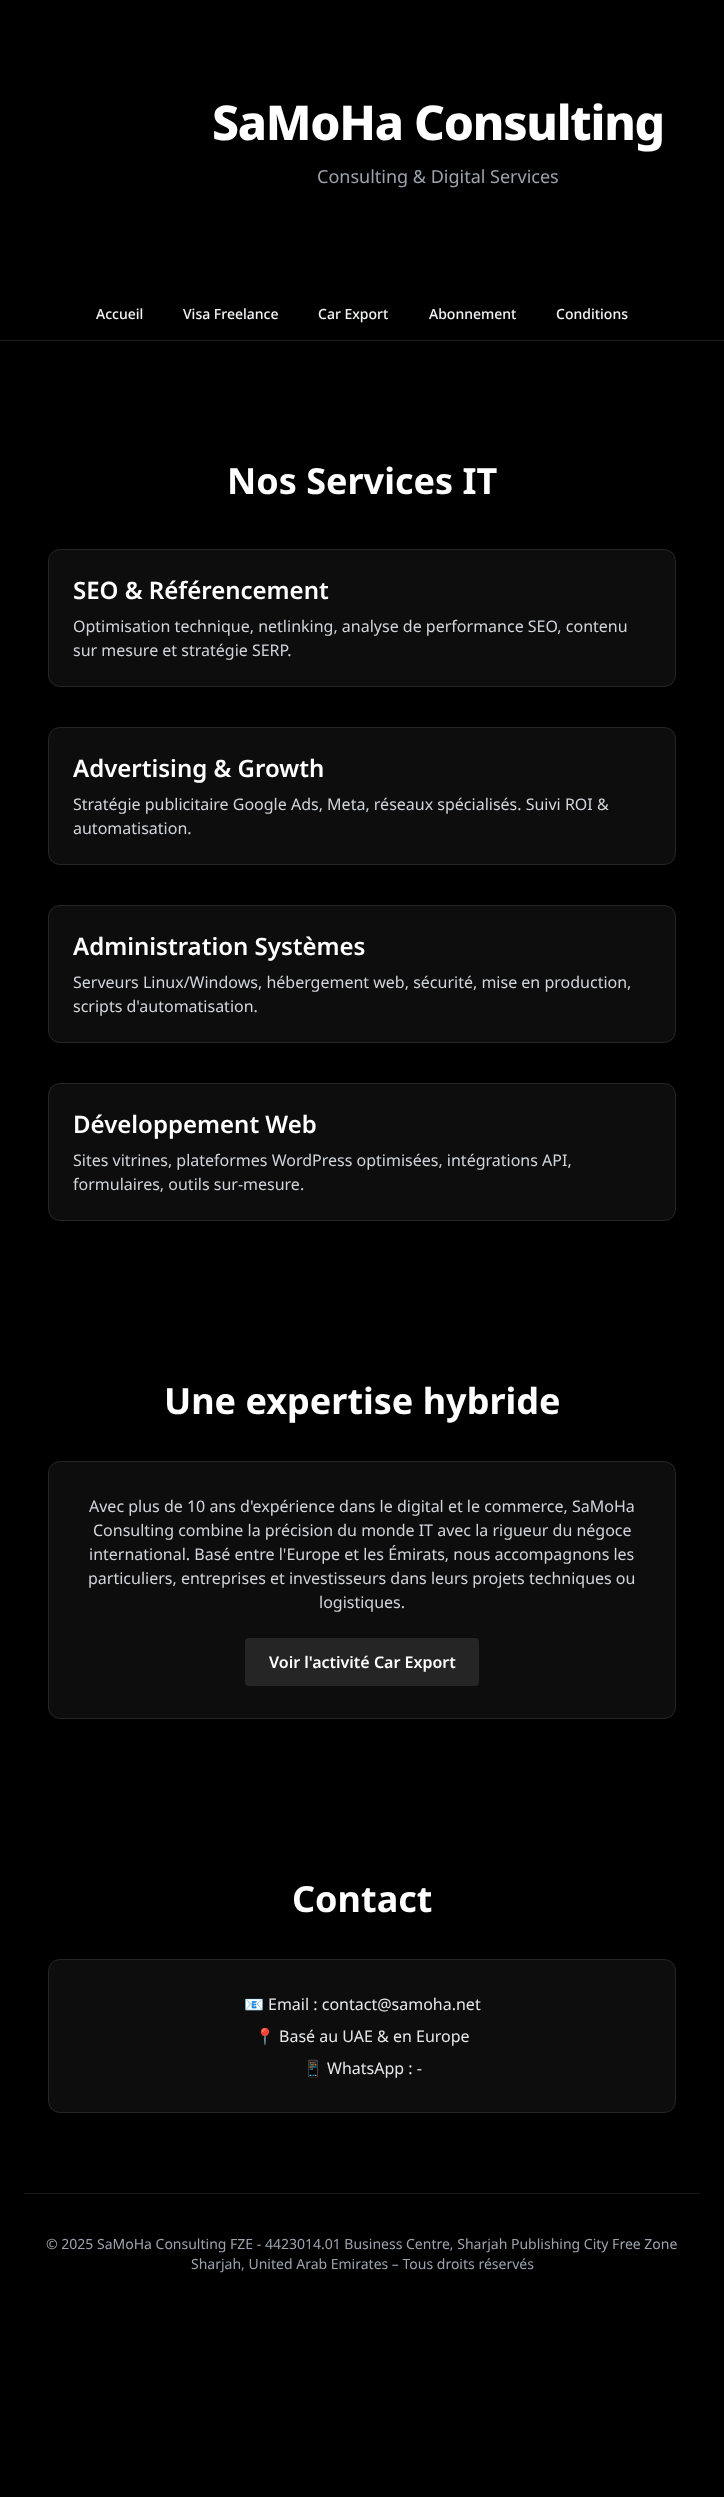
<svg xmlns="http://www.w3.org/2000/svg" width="724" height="2497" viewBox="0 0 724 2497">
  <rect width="100%" height="100%" fill="#000"/>
  <path d="M0 340h724v1H0z" fill="#1a1a1a"/>
  <rect x="48" y="549" width="628" height="138" rx="12" fill="#0d0d0d"/>
  <rect x="48.5" y="549.5" width="627" height="137" rx="11.5" fill="none" stroke="#ffffff1a"/>
  <rect x="48" y="727" width="628" height="138" rx="12" fill="#0d0d0d"/>
  <rect x="48.5" y="727.5" width="627" height="137" rx="11.5" fill="none" stroke="#ffffff1a"/>
  <rect x="48" y="905" width="628" height="138" rx="12" fill="#0d0d0d"/>
  <rect x="48.5" y="905.5" width="627" height="137" rx="11.5" fill="none" stroke="#ffffff1a"/>
  <rect x="48" y="1083" width="628" height="138" rx="12" fill="#0d0d0d"/>
  <rect x="48.5" y="1083.5" width="627" height="137" rx="11.5" fill="none" stroke="#ffffff1a"/>
  <rect x="48" y="1461" width="628" height="258" rx="12" fill="#0d0d0d"/>
  <rect x="48.5" y="1461.5" width="627" height="257" rx="11.5" fill="none" stroke="#ffffff1a"/>
  <rect x="245" y="1638" width="234" height="48" rx="4" fill="#252525"/>
  <rect x="48" y="1959" width="628" height="154" rx="12" fill="#0d0d0d"/>
  <rect x="48.5" y="1959.5" width="627" height="153" rx="11.5" fill="none" stroke="#ffffff1a"/>
  <path d="M24 2193h676v1H24z" fill="#1a1a1a"/>
  <text x="212" y="140" font-family="Noto Sans" font-size="48" font-weight="800" letter-spacing="-1.25" fill="#fff">SaMoHa Consulting</text>
  <text x="317" y="183" font-family="Noto Sans" font-size="18" fill="#9ca3af">Consulting &amp; Digital Services</text>
  <g font-family="Noto Sans" font-size="14" font-weight="500" fill="#f3f4f6">
    <text x="96" y="319">Accueil</text>
    <text x="183" y="319">Visa Freelance</text>
    <text x="318" y="319">Car Export</text>
    <text x="429" y="319">Abonnement</text>
    <text x="556" y="319">Conditions</text>
  </g>
  <text x="227" y="494" font-family="Noto Sans" font-size="36" font-weight="bold" fill="#fff">Nos Services IT</text>
  <text x="73" y="599" font-family="Noto Sans" font-size="24" font-weight="600" fill="#fff">SEO &amp; Référencement</text>
  <g font-family="Noto Sans" font-size="16" fill="#d1d5db">
    <text x="73" y="632">Optimisation technique, netlinking, analyse de performance SEO, contenu</text>
    <text x="73" y="656">sur mesure et stratégie SERP.</text>
  </g>
  <text x="73" y="777" font-family="Noto Sans" font-size="24" font-weight="600" fill="#fff">Advertising &amp; Growth</text>
  <g font-family="Noto Sans" font-size="16" fill="#d1d5db">
    <text x="73" y="810">Stratégie publicitaire Google Ads, Meta, réseaux spécialisés. Suivi ROI &amp;</text>
    <text x="73" y="834">automatisation.</text>
  </g>
  <text x="73" y="955" font-family="Noto Sans" font-size="24" font-weight="600" fill="#fff">Administration Systèmes</text>
  <g font-family="Noto Sans" font-size="16" fill="#d1d5db">
    <text x="73" y="988">Serveurs Linux/Windows, hébergement web, sécurité, mise en production,</text>
    <text x="73" y="1012">scripts d'automatisation.</text>
  </g>
  <text x="73" y="1133" font-family="Noto Sans" font-size="24" font-weight="600" fill="#fff">Développement Web</text>
  <g font-family="Noto Sans" font-size="16" fill="#d1d5db">
    <text x="73" y="1166">Sites vitrines, plateformes WordPress optimisées, intégrations API,</text>
    <text x="73" y="1190">formulaires, outils sur-mesure.</text>
  </g>
  <text x="164" y="1414" font-family="Noto Sans" font-size="36" font-weight="bold" fill="#fff">Une expertise hybride</text>
  <g font-family="Noto Sans" font-size="16" fill="#d1d5db">
    <text x="89" y="1512">Avec plus de 10 ans d'expérience dans le digital et le commerce, SaMoHa</text>
    <text x="93" y="1536">Consulting combine la précision du monde IT avec la rigueur du négoce</text>
    <text x="89" y="1560">international. Basé entre l'Europe et les Émirats, nous accompagnons les</text>
    <text x="88" y="1584">particuliers, entreprises et investisseurs dans leurs projets techniques ou</text>
    <text x="319" y="1608">logistiques.</text>
  </g>
  <text x="269" y="1668" font-family="Noto Sans" font-size="16" font-weight="600" fill="#fff">Voir l'activité Car Export</text>
  <text x="292" y="1912" font-family="Noto Sans" font-size="36" font-weight="bold" fill="#fff">Contact</text>
  <text x="244" y="2010" font-family="Noto Color Emoji" font-size="16" fill="#e5e7eb">📧</text>
  <text x="268" y="2010" font-family="Noto Sans" font-size="16" fill="#e5e7eb">Email : contact@samoha.net</text>
  <text x="255" y="2042" font-family="Noto Color Emoji" font-size="16" fill="#e5e7eb">📍</text>
  <text x="279" y="2042" font-family="Noto Sans" font-size="16" fill="#e5e7eb">Basé au UAE &amp; en Europe</text>
  <text x="303" y="2074" font-family="Noto Color Emoji" font-size="16" fill="#e5e7eb">📱</text>
  <text x="327" y="2074" font-family="Noto Sans" font-size="16" fill="#e5e7eb">WhatsApp : -</text>
  <g font-family="Noto Sans" font-size="14" fill="#9ca3af">
    <text x="46" y="2249">© 2025 SaMoHa Consulting FZE - 4423014.01 Business Centre, Sharjah Publishing City Free Zone</text>
    <text x="191" y="2269">Sharjah, United Arab Emirates – Tous droits réservés</text>
  </g>
</svg>
